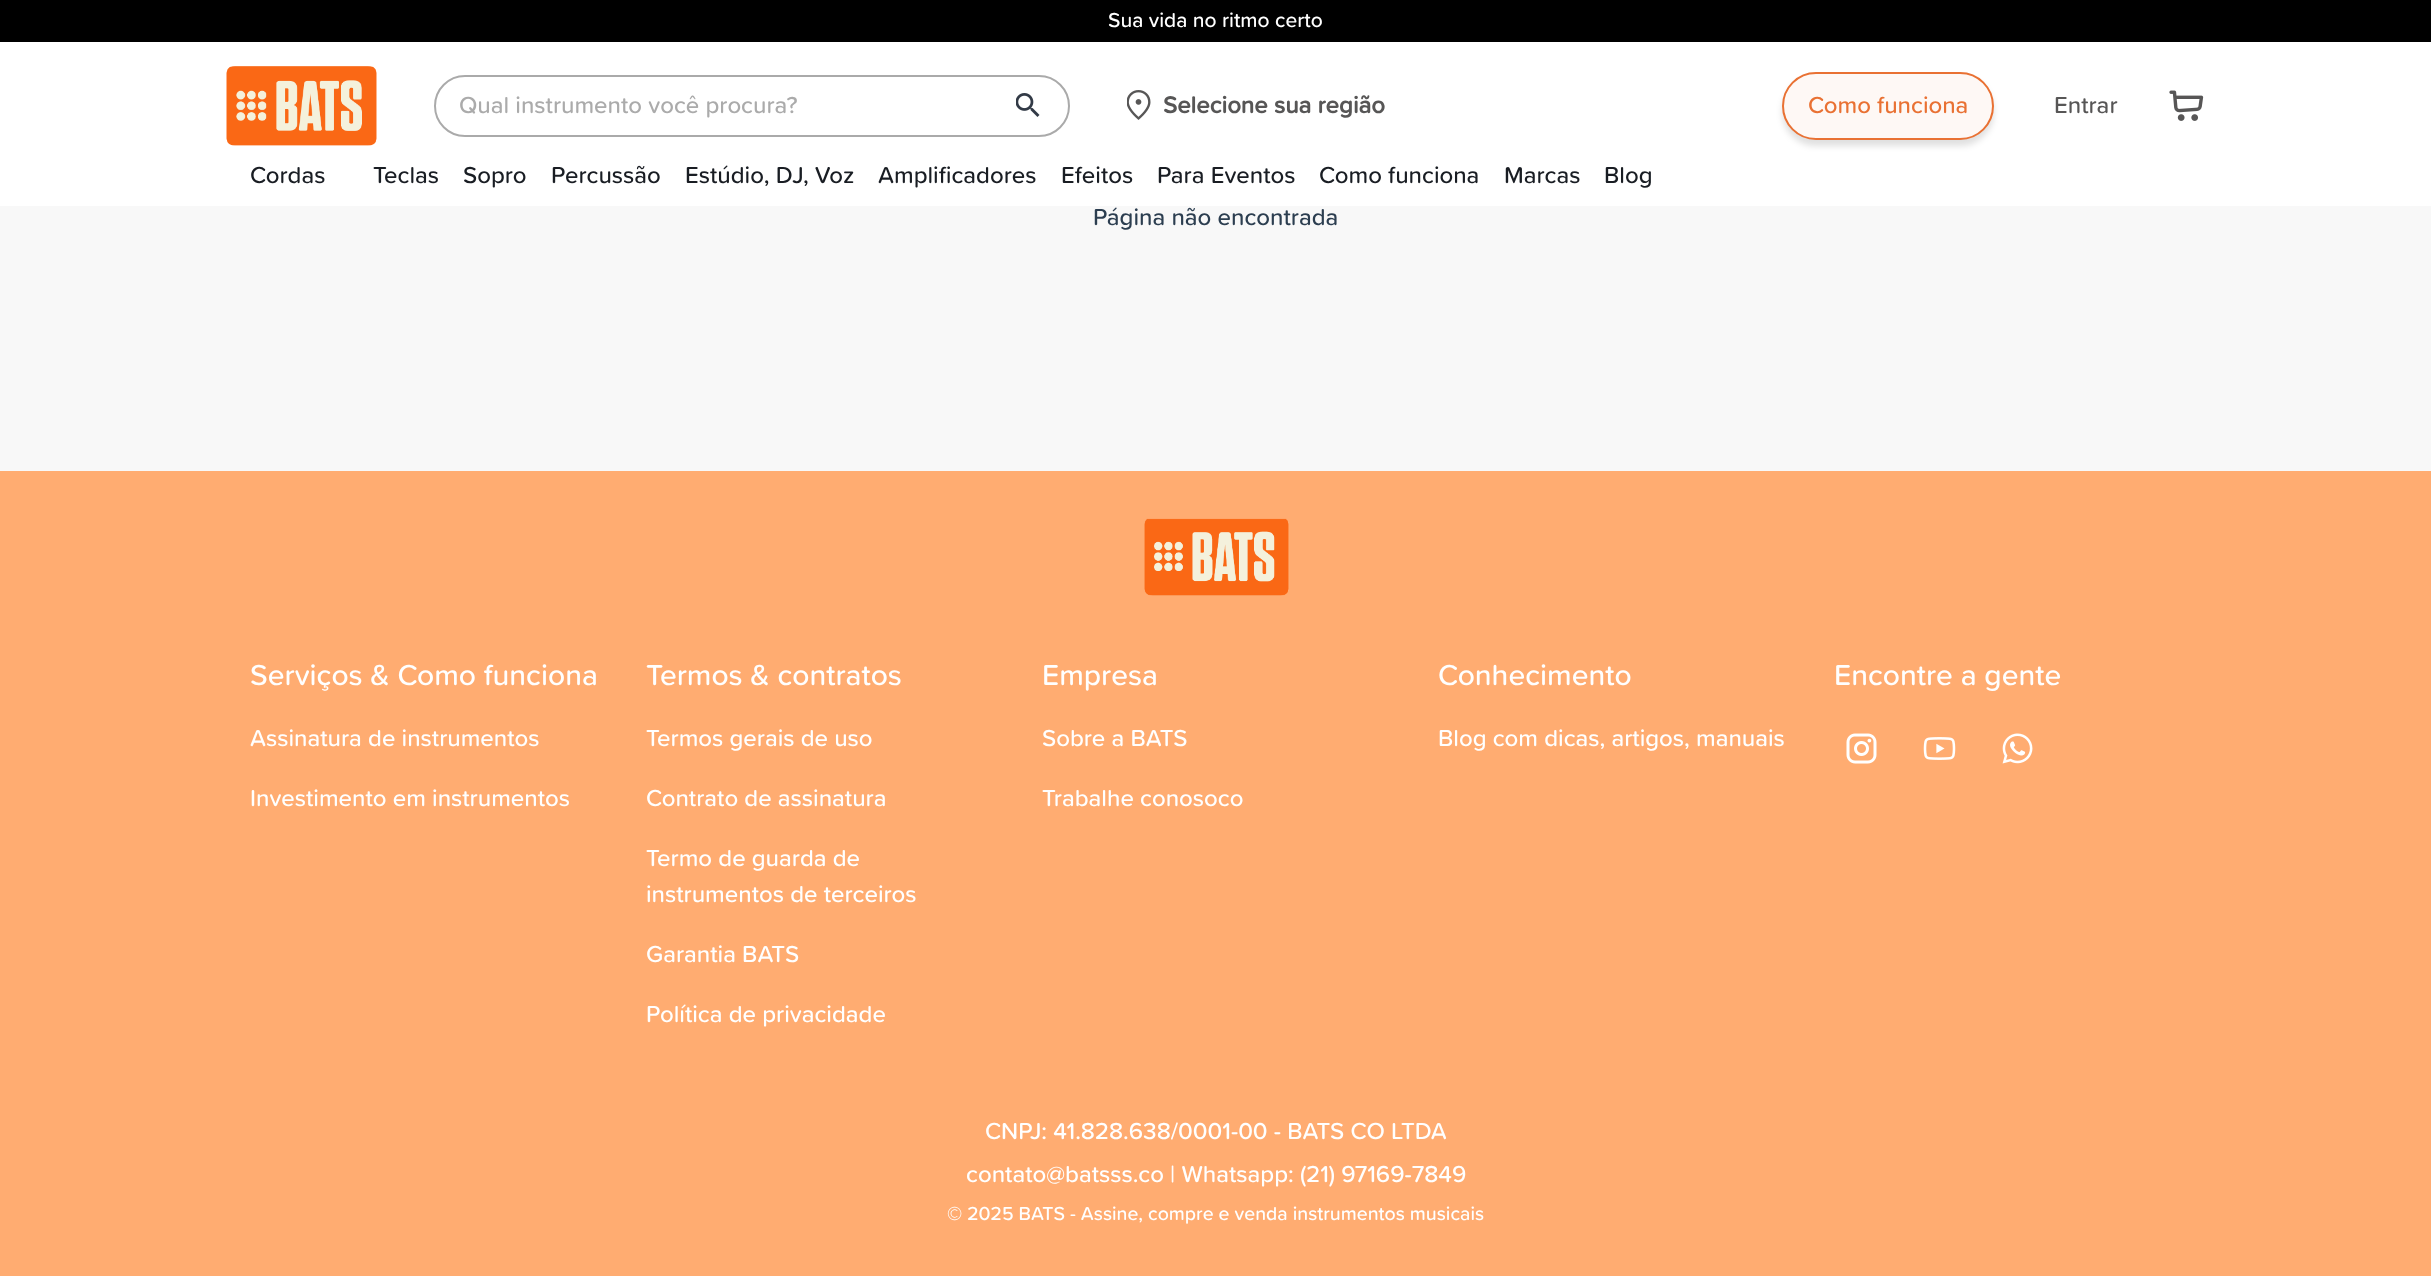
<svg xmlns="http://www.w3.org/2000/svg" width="2431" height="1276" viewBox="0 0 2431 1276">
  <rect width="100%" height="100%" fill="#f8f8f8"/>
  <path d="M0 42h2431v164H0z" fill="#fff"/>
  <path d="M0 0h2431v42H0z" fill="#000"/>
  <image x="226" y="66" width="151" height="80" href="img/1.png"/>
  <rect x="435" y="76" width="634" height="60" rx="30" fill="none" stroke="#aaa" stroke-width="2"/>
  <image x="1016" y="93" width="24" height="24" href="img/2.png"/>
  <image x="1127" y="90" width="24" height="30" href="img/3.png"/>
  <rect x="1782" y="78" width="212" height="68" rx="34" fill="#0000001f" filter="blur(3px)"/>
  <rect x="1783" y="73" width="210" height="66" rx="33" fill="#fef8f5" stroke="#e97133" stroke-width="2"/>
  <image x="2169" y="90" width="35" height="31" href="img/4.png"/>
  <path d="M0 471h2431v805H0z" fill="#ffac71"/>
  <image x="1144" y="518" width="145" height="78" href="img/5.png"/>
  <image x="1846" y="733" width="31" height="31" href="img/6.png"/>
  <image x="1923" y="737" width="33" height="23" href="img/7.png"/>
  <image x="2002" y="733" width="31" height="31" href="img/8.png"/>
  <text x="1108" y="27" font-family="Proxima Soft" font-size="21" font-weight="500" fill="#fff">Sua vida no ritmo certo</text>
  <text x="459" y="113" font-family="Proxima Soft" font-size="24" font-weight="500" fill="#ababab">Qual instrumento você procura?</text>
  <text x="1163" y="113" font-family="Proxima Soft" font-size="24" font-weight="bold" fill="#575656">Selecione sua região</text>
  <text x="1808" y="113" font-family="Proxima Soft" font-size="24" font-weight="500" fill="#e97133">Como funciona</text>
  <text x="2054" y="113" font-family="Proxima Soft" font-size="24" font-weight="500" fill="#575656">Entrar</text>
  <g font-family="Proxima Soft" font-size="24" font-weight="500" fill="#191d23">
    <text x="250" y="183">Cordas</text>
    <text x="373" y="183">Teclas</text>
    <text x="463" y="183">Sopro</text>
    <text x="551" y="183">Percussão</text>
    <text x="685" y="183">Estúdio, DJ, Voz</text>
    <text x="878" y="183">Amplificadores</text>
    <text x="1061" y="183">Efeitos</text>
    <text x="1157" y="183">Para Eventos</text>
    <text x="1319" y="183">Como funciona</text>
    <text x="1504" y="183">Marcas</text>
    <text x="1604" y="183">Blog</text>
  </g>
  <text x="1093" y="225" font-family="Proxima Soft" font-size="24" font-weight="500" fill="#2c3e50">Página não encontrada</text>
  <text x="250" y="685" font-family="Proxima Soft" font-size="30" font-weight="500" fill="#fff">Serviços &amp; Como funciona</text>
  <g font-family="Proxima Soft" font-size="24" font-weight="500" fill="#fff">
    <text x="250" y="746">Assinatura de instrumentos</text>
    <text x="250" y="806">Investimento em instrumentos</text>
  </g>
  <text x="646" y="685" font-family="Proxima Soft" font-size="30" font-weight="500" fill="#fff">Termos &amp; contratos</text>
  <g font-family="Proxima Soft" font-size="24" font-weight="500" fill="#fff">
    <text x="646" y="746">Termos gerais de uso</text>
    <text x="646" y="806">Contrato de assinatura</text>
    <text x="646" y="866">Termo de guarda de</text>
    <text x="646" y="902">instrumentos de terceiros</text>
    <text x="646" y="962">Garantia BATS</text>
    <text x="646" y="1022">Política de privacidade</text>
  </g>
  <text x="1042" y="685" font-family="Proxima Soft" font-size="30" font-weight="500" fill="#fff">Empresa</text>
  <g font-family="Proxima Soft" font-size="24" font-weight="500" fill="#fff">
    <text x="1042" y="746">Sobre a BATS</text>
    <text x="1042" y="806">Trabalhe conosoco</text>
  </g>
  <text x="1438" y="685" font-family="Proxima Soft" font-size="30" font-weight="500" fill="#fff">Conhecimento</text>
  <text x="1438" y="746" font-family="Proxima Soft" font-size="24" font-weight="500" fill="#fff">Blog com dicas, artigos, manuais</text>
  <text x="1834" y="685" font-family="Proxima Soft" font-size="30" font-weight="500" fill="#fff">Encontre a gente</text>
  <g font-family="Proxima Soft" font-size="24" font-weight="500" fill="#fff">
    <text x="985" y="1139">CNPJ: 41.828.638/0001-00 - BATS CO LTDA</text>
    <text x="966" y="1182">contato@batsss.co | Whatsapp: (21) 97169-7849</text>
  </g>
  <text x="947" y="1220" font-family="Proxima Soft" font-size="19.5" font-weight="500" fill="#fff">© 2025 BATS - Assine, compre e venda instrumentos musicais</text>
</svg>
